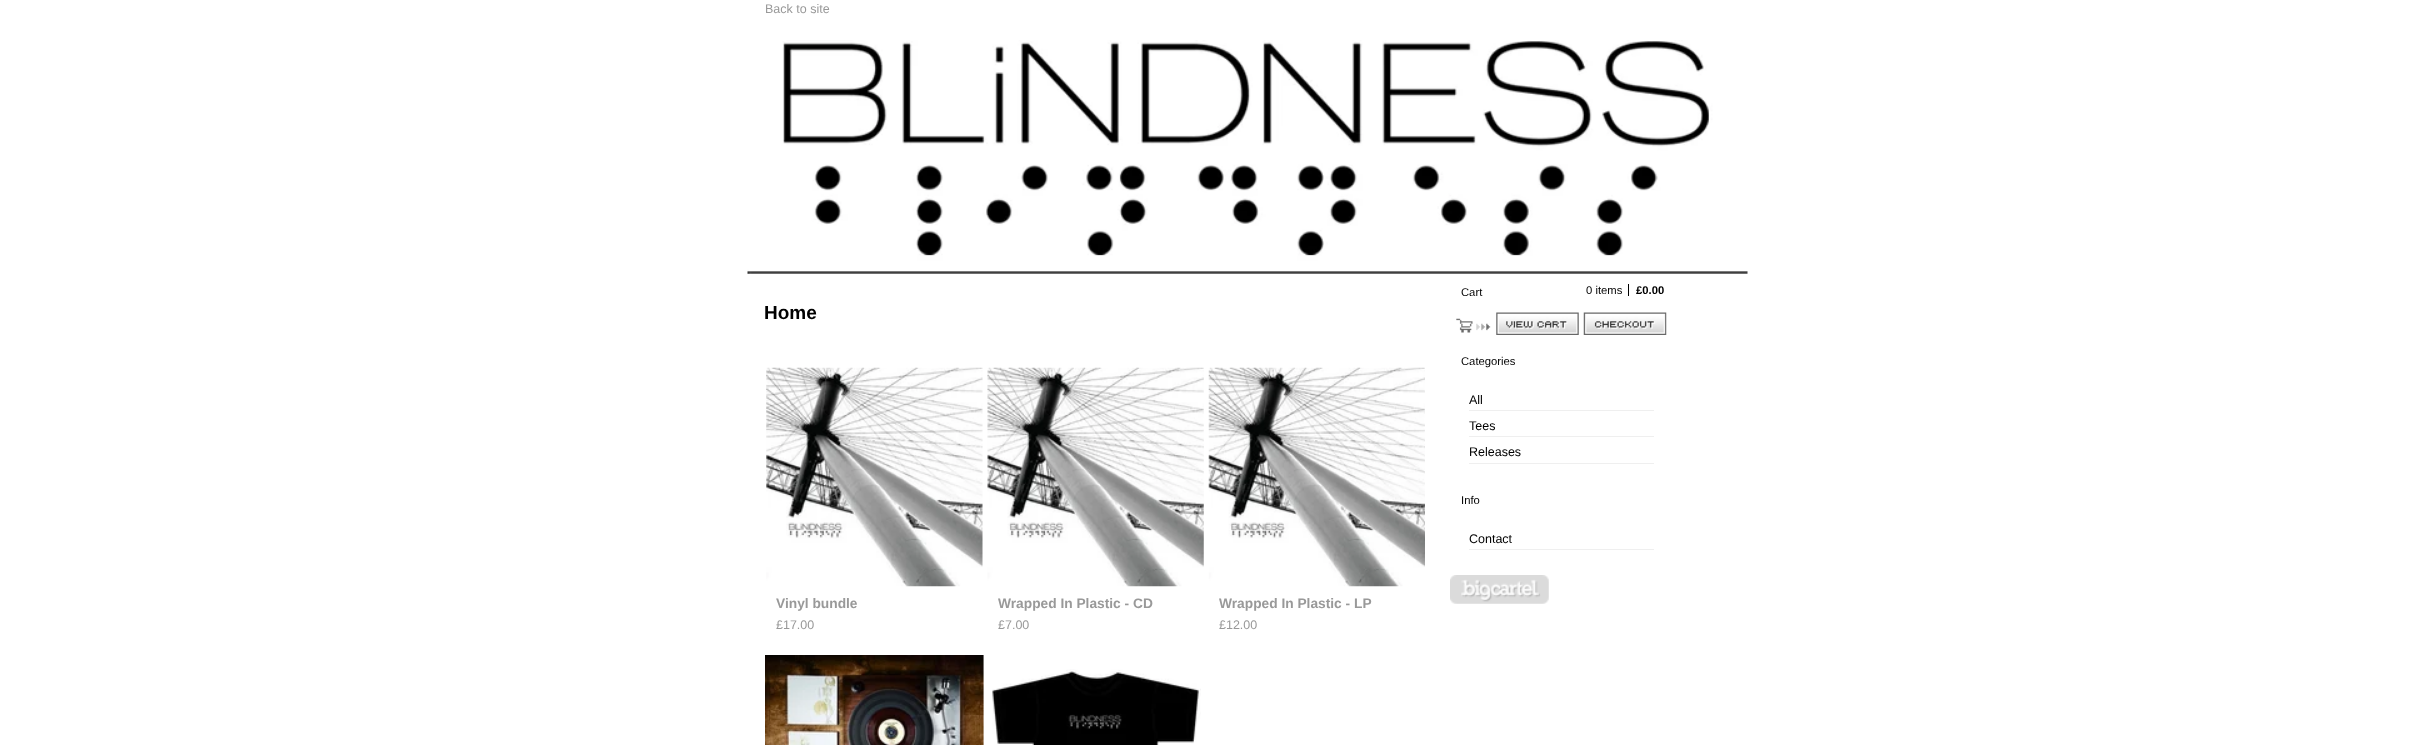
<svg xmlns="http://www.w3.org/2000/svg" width="2419" height="745" viewBox="0 0 2419 745">
  <rect width="100%" height="100%" fill="#fff"/>
  <image x="747" y="40" width="1001" height="234" href="img/1.png"/>
  <image x="766" y="367" width="217" height="220" href="img/2.png"/>
  <image x="987" y="367" width="217" height="220" href="img/3.png"/>
  <image x="1208" y="367" width="217" height="220" href="img/4.png"/>
  <image x="765" y="655" width="219" height="90" href="img/5.png"/>
  <image x="992" y="669" width="209" height="76" href="img/6.png"/>
  <image x="1456" y="318" width="35" height="15" href="img/7.png"/>
  <path d="M1628 284h1v12H1628z" fill="#000"/>
  <image x="1496" y="312" width="83" height="23" href="img/8.png"/>
  <image x="1583" y="312" width="84" height="23" href="img/9.png"/>
  <path d="M1469 410h185v1H1469z" fill="#efefef"/>
  <path d="M1469 436h185v1H1469z" fill="#efefef"/>
  <path d="M1469 463h185v1H1469z" fill="#efefef"/>
  <path d="M1469 549h185v1H1469z" fill="#efefef"/>
  <image x="1450" y="575" width="99" height="29" href="img/10.png"/>
  <text x="765" y="13" font-family="Liberation Sans" font-size="12.5" fill="#999">Back to site</text>
  <text x="764" y="319" font-family="Liberation Sans" font-size="19" font-weight="bold" fill="#000">Home</text>
  <text x="776" y="608" font-family="Liberation Sans" font-size="13.75" font-weight="bold" fill="#999">Vinyl bundle</text>
  <text x="776" y="629" font-family="Liberation Sans" font-size="12.5" fill="#999">£17.00</text>
  <text x="998" y="608" font-family="Liberation Sans" font-size="13.75" font-weight="bold" fill="#999">Wrapped In Plastic - CD</text>
  <text x="998" y="629" font-family="Liberation Sans" font-size="12.5" fill="#999">£7.00</text>
  <text x="1219" y="608" font-family="Liberation Sans" font-size="13.75" font-weight="bold" fill="#999">Wrapped In Plastic - LP</text>
  <text x="1219" y="629" font-family="Liberation Sans" font-size="12.5" fill="#999">£12.00</text>
  <g font-family="Liberation Sans" font-size="11.25" fill="#000">
    <text x="1461" y="296">Cart</text>
    <text x="1586" y="294">0 items</text>
  </g>
  <text x="1636" y="294" font-family="Liberation Sans" font-size="11.25" font-weight="bold" fill="#000">£0.00</text>
  <text x="1461" y="365" font-family="Liberation Sans" font-size="11.25" fill="#000">Categories</text>
  <g font-family="Liberation Sans" font-size="12.5" fill="#000">
    <text x="1469" y="404">All</text>
    <text x="1469" y="430">Tees</text>
    <text x="1469" y="456">Releases</text>
  </g>
  <text x="1461" y="504" font-family="Liberation Sans" font-size="11.25" fill="#000">Info</text>
  <text x="1469" y="543" font-family="Liberation Sans" font-size="12.5" fill="#000">Contact</text>
</svg>
